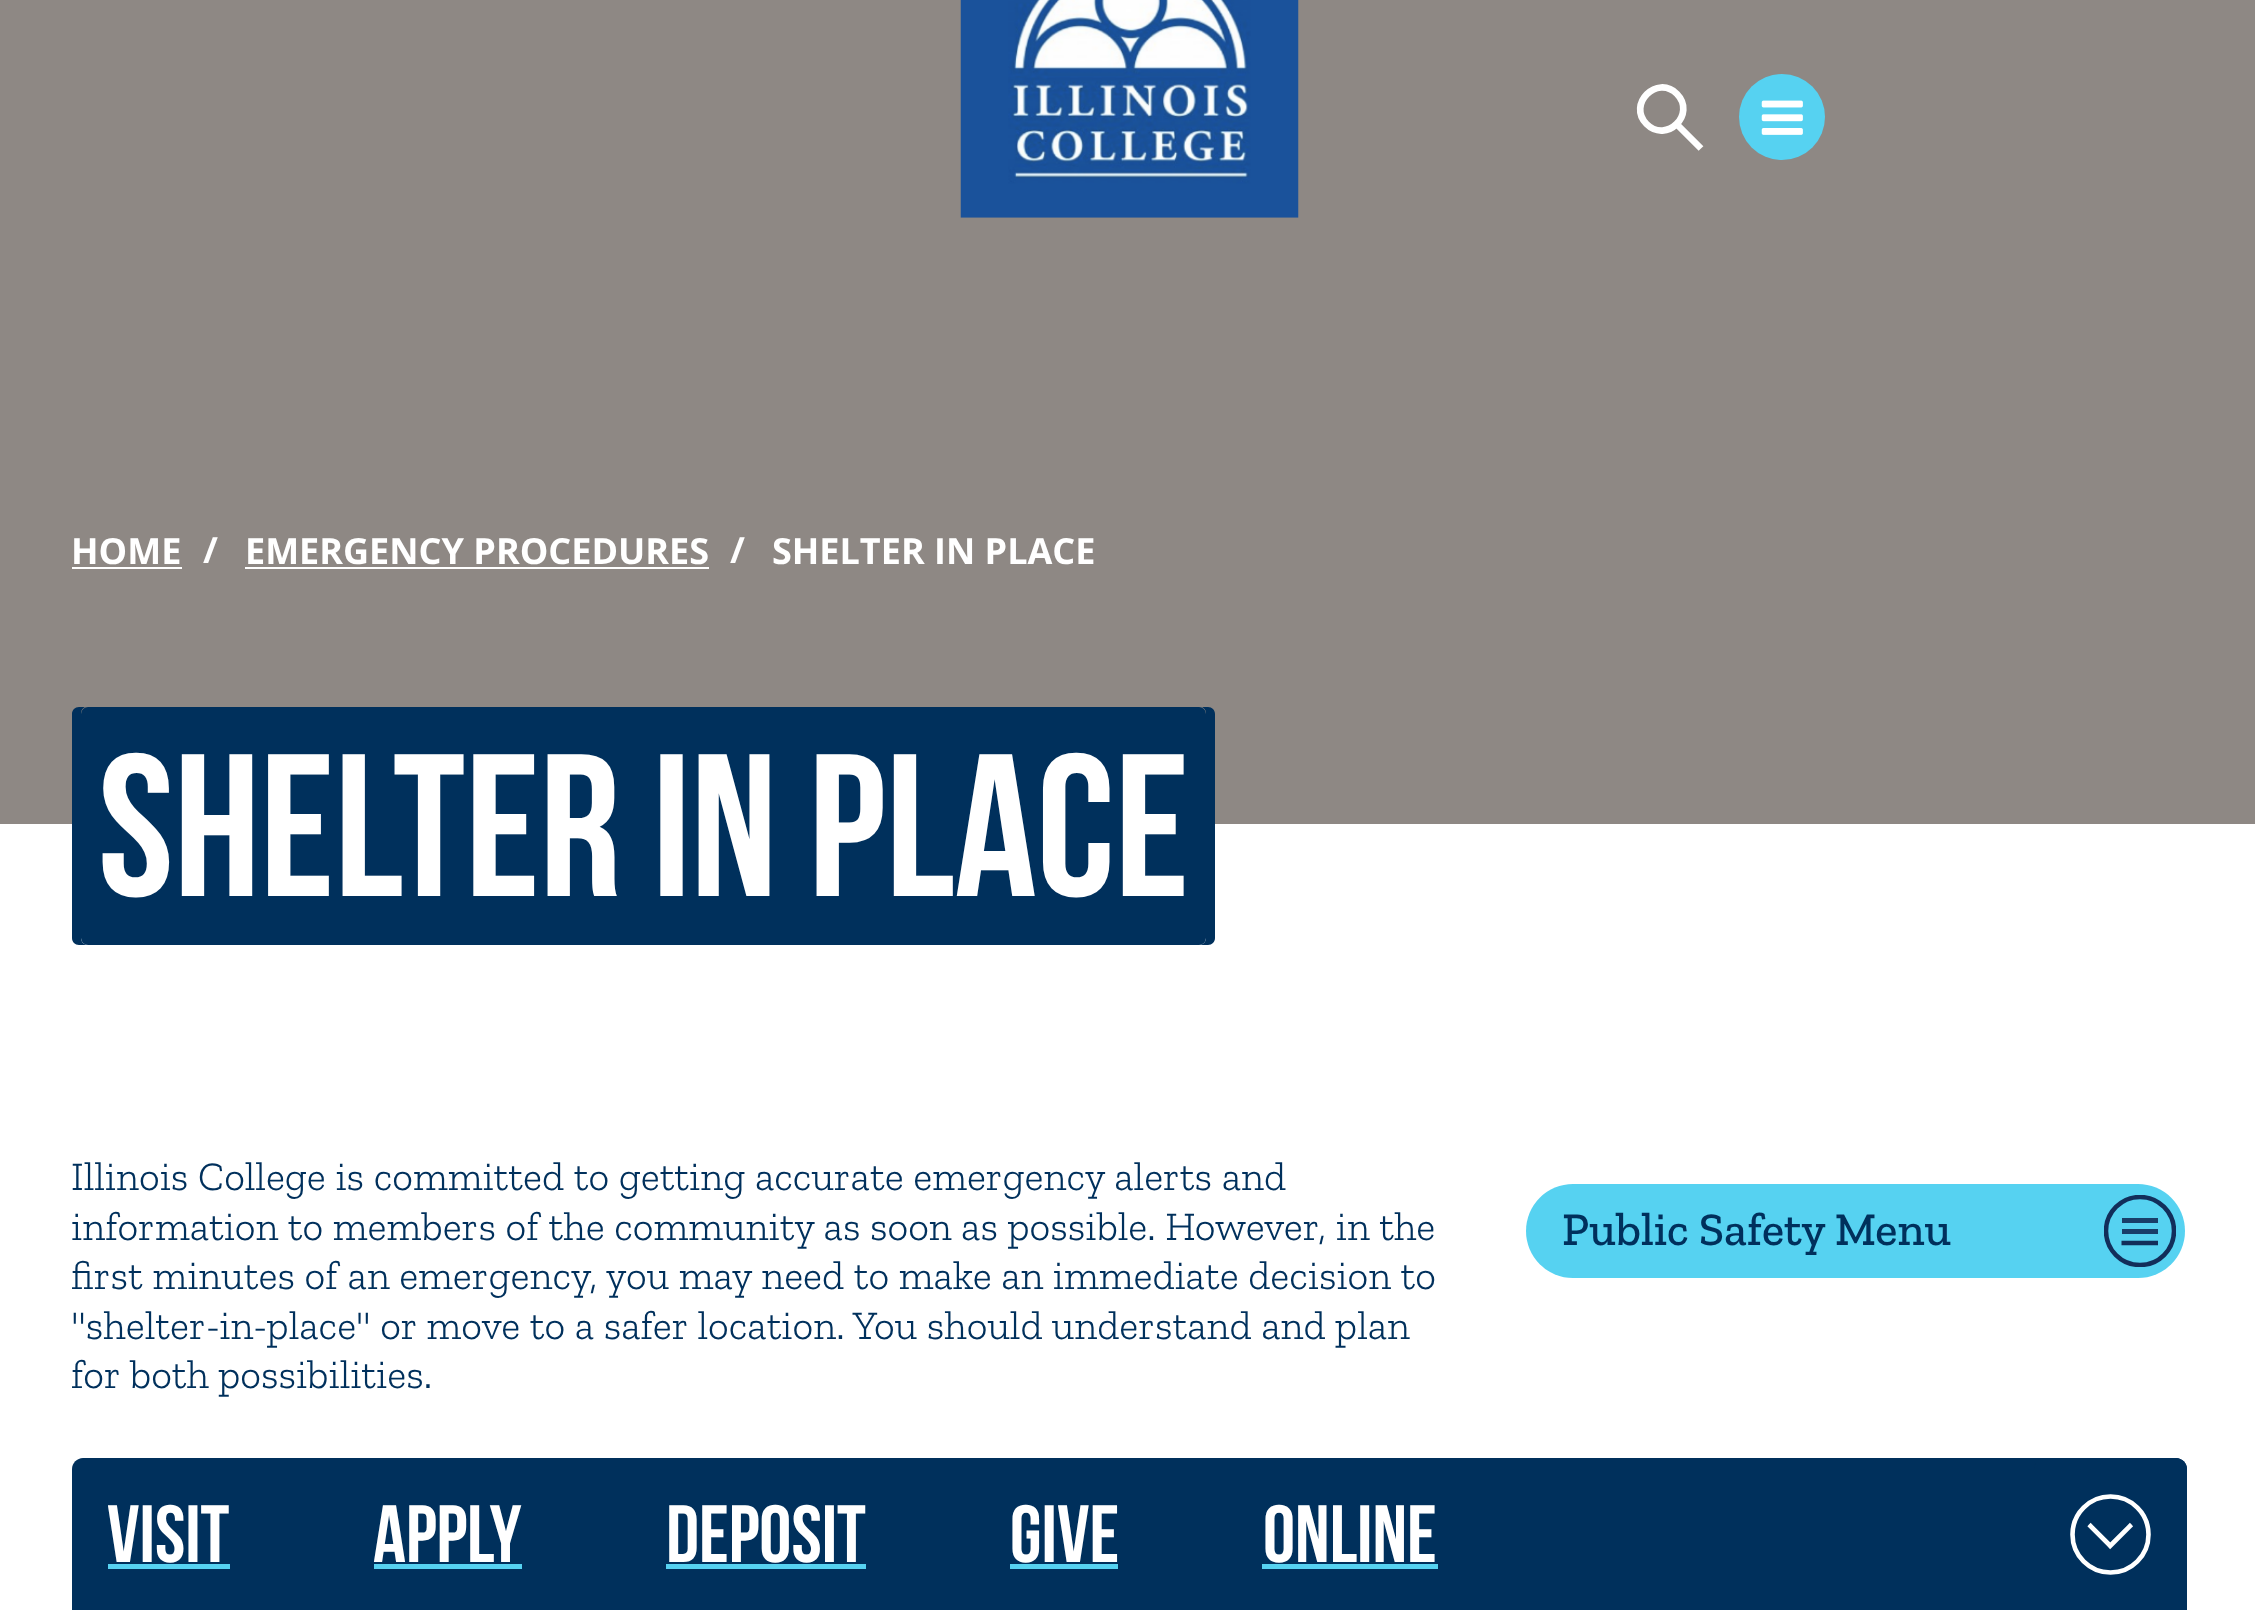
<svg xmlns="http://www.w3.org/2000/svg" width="2255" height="1610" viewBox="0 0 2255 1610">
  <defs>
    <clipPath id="clip1"><path d="M2104 1195h72v72H2104z"/></clipPath>
  </defs>
  <rect width="100%" height="100%" fill="#8e8884"/>
  <image x="960" y="0" width="339" height="218" href="img/1.png"/>
  <circle cx="1782" cy="117" r="43" fill="#56d2f1"/>
  <path d="M1677 94C1696.5 114 1666.5 144 1646.5 124C1627 104.5 1657 74 1677 94Z" fill="none" stroke="#fff" stroke-width="6.7"/>
  <path d="M1677 124.5L1701 148.5" fill="none" stroke="#fff" stroke-width="6.7"/>
  <image x="1761" y="100" width="42" height="35" href="img/2.png"/>
  <path d="M72 567h110v2H72z" fill="#fff"/>
  <path d="M245 567h464v2H245z" fill="#fff"/>
  <path d="M0 824h2255v786H0z" fill="#fff"/>
  <path d="M79 707C75 707 72 710 72 714V938C72 942 75 945 79 945H88C84 945 81 942 81 938V713C81 710 83 708 85 707Z" fill="#00305c"/>
  <path d="M1199 945H1208C1212 945 1215 942 1215 938V714C1215 710 1212 707 1208 707H1202C1204 708 1206 710 1206 713V938C1206 942 1203 945 1199 945Z" fill="#00305c"/>
  <rect x="81" y="707" width="1125" height="238" rx="7" fill="#00305c"/>
  <rect x="1526" y="1184" width="659" height="94" rx="47" fill="#56d2f1"/>
  <g clip-path="url(#clip1)">
    <circle cx="2140" cy="1231" r="34" fill="none" stroke="#122e5a" stroke-width="4.5"/>
  </g>
  <path d="M2122 1218h36v5H2122z" fill="#193e69"/>
  <path d="M2122 1229h36v5H2122z" fill="#193e69"/>
  <path d="M2121.5 1243H2158" fill="none" stroke="#122e5a" stroke-width="4.5"/>
  <path d="M83 1458H2176C2182 1458 2187 1463 2187 1469V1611H72V1469C72 1463 77 1458 83 1458Z" fill="#00305c"/>
  <path d="M108 1564h122v5H108z" fill="#56d2f1"/>
  <path d="M374 1564h148v5H374z" fill="#56d2f1"/>
  <path d="M666 1564h200v5H666z" fill="#56d2f1"/>
  <path d="M1010 1564h108v5H1010z" fill="#56d2f1"/>
  <path d="M1262 1564h176v5H1262z" fill="#56d2f1"/>
  <path d="M2045 1458H2176C2182 1458 2187 1463 2187 1469V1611H2034V1469C2034 1463 2039 1458 2045 1458Z" fill="#00305c"/>
  <circle cx="2110.5" cy="1534.5" r="38" fill="none" stroke="#fff" stroke-width="4.6"/>
  <path d="M2089 1524.5L2109.5 1545M2131.5 1524.5L2108.5 1547.5" fill="none" stroke="#fff" stroke-width="4.6"/>
  <g font-family="Open Sans" font-size="36" font-weight="bold" fill="#fff">
    <text x="71" y="564">HOME</text>
    <text x="203" y="563">/</text>
    <text x="245" y="564">EMERGENCY PROCEDURES</text>
    <text x="730" y="563">/</text>
    <text x="772" y="564">SHELTER IN PLACE</text>
  </g>
  <text x="98" y="896" font-family="Bebas Neue" font-size="202.5" font-weight="bold" fill="#fff">Shelter In Place</text>
  <g font-family="Zilla Slab" font-size="40.5" font-weight="300" fill="#00305c">
    <text x="71" y="1190">Illinois College is committed to getting accurate emergency alerts and</text>
    <text x="71" y="1240">information to members of the community as soon as possible. However, in the</text>
    <text x="71" y="1289">first minutes of an emergency, you may need to make an immediate decision to</text>
    <text x="71" y="1339">"shelter-in-place" or move to a safer location. You should understand and plan</text>
    <text x="71" y="1388">for both possibilities.</text>
  </g>
  <text x="1562" y="1245" font-family="Zilla Slab" font-size="46.75" font-weight="500" fill="#00305c">Public Safety Menu</text>
  <g font-family="Bebas Neue" font-size="81" font-weight="bold" fill="#fff">
    <text x="107" y="1562">Visit</text>
    <text x="373" y="1562">Apply</text>
    <text x="666" y="1562">Deposit</text>
    <text x="1010" y="1562">Give</text>
    <text x="1263" y="1562">Online</text>
  </g>
</svg>
